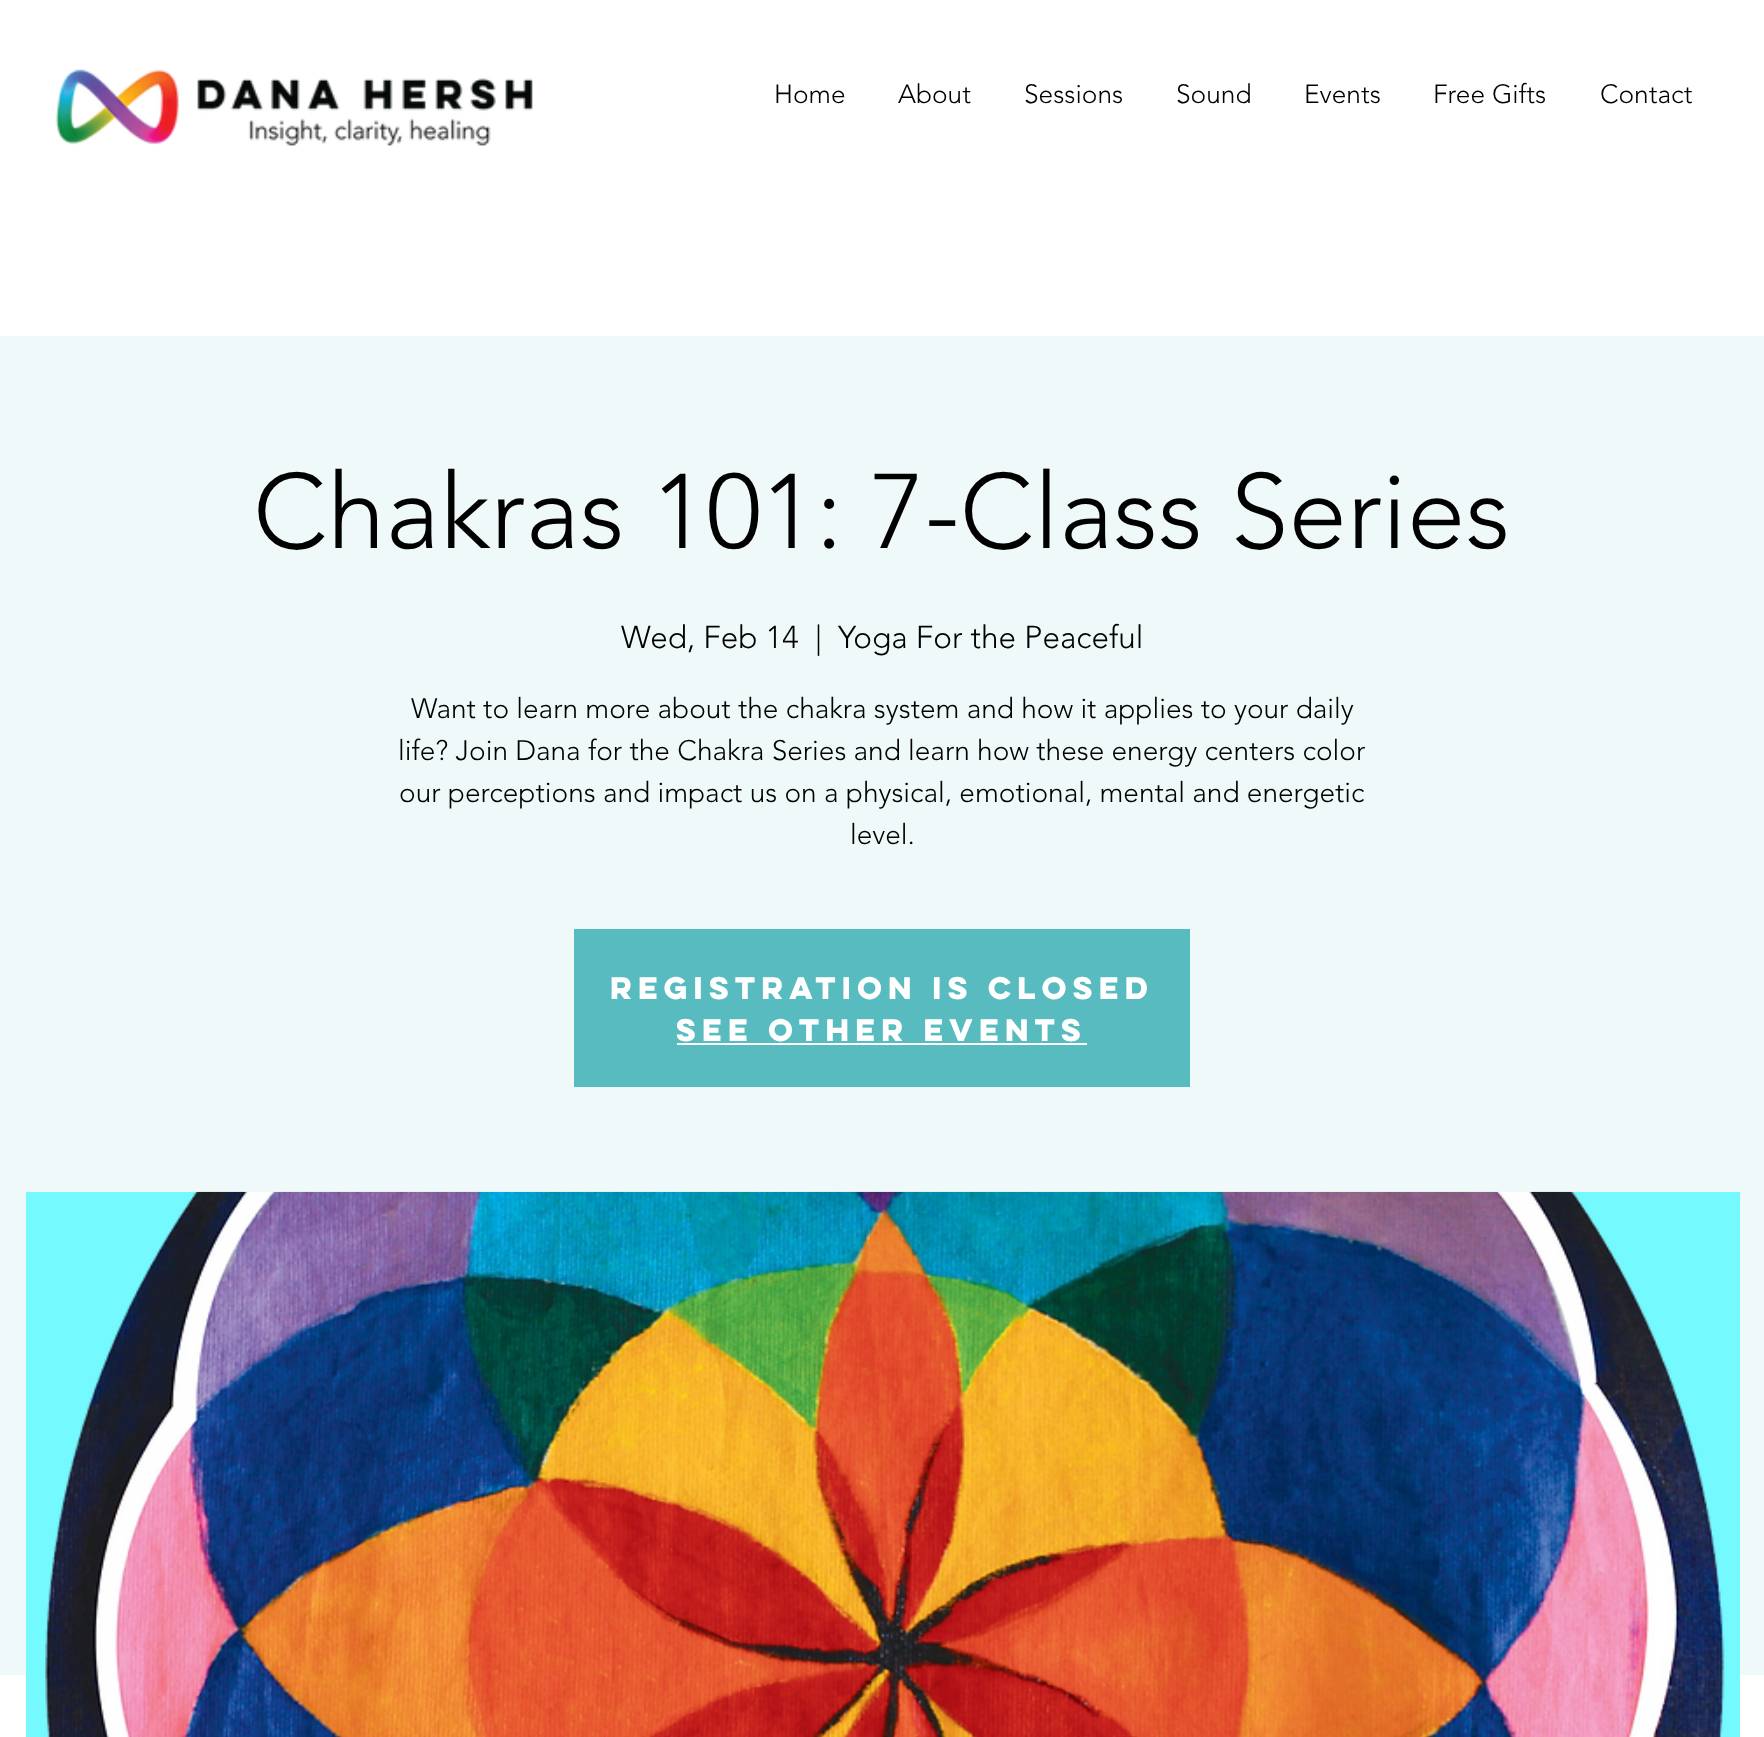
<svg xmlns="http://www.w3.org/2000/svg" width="1764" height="1737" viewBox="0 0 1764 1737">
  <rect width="100%" height="100%" fill="#fff"/>
  <image x="55" y="69" width="478" height="78" href="img/1.png"/>
  <path d="M0 336h1764v1339H0z" fill="#eff9f9"/>
  <path d="M574 929h616v158H574z" fill="#57bbbf"/>
  <path d="M677 1043h410v2H677z" fill="#fff"/>
  <path d="M26 1192h1714v545H26z" fill="#74f9ff"/>
  <image x="45" y="1191" width="1680" height="546" href="img/2.png"/>
  <g font-family="'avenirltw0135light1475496'" font-size="26.25" font-weight="300" fill="#000">
    <text x="774" y="103">Home</text>
    <text x="898" y="103">About</text>
    <text x="1024" y="103">Sessions</text>
    <text x="1176" y="103">Sound</text>
    <text x="1304" y="103">Events</text>
    <text x="1433" y="103">Free Gifts</text>
    <text x="1600" y="103">Contact</text>
  </g>
  <text x="253" y="548" font-family="'avenirltw0135light1475496'" font-size="105" font-weight="300" fill="#000">Chakras 101: 7-Class Series</text>
  <g font-family="'avenirltw0135light1475496'" font-size="31.5" font-weight="300" fill="#000">
    <text x="621" y="648">Wed, Feb 14</text>
    <text x="815" y="648">|</text>
    <text x="838" y="648">Yoga For the Peaceful</text>
  </g>
  <g font-family="'avenirltw0135light1475496'" font-size="28" font-weight="300" fill="#000">
    <text x="411" y="718">Want to learn more about the chakra system and how it applies to your daily</text>
    <text x="398" y="760">life? Join Dana for the Chakra Series and learn how these energy centers color</text>
    <text x="399" y="802">our perceptions and impact us on a physical, emotional, mental and energetic</text>
    <text x="850" y="844">level.</text>
  </g>
  <g font-family="'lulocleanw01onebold'" font-size="28" font-weight="bold" fill="#fff">
    <text x="610" y="999">Registration is Closed</text>
    <text x="676" y="1041">See other events</text>
  </g>
</svg>
